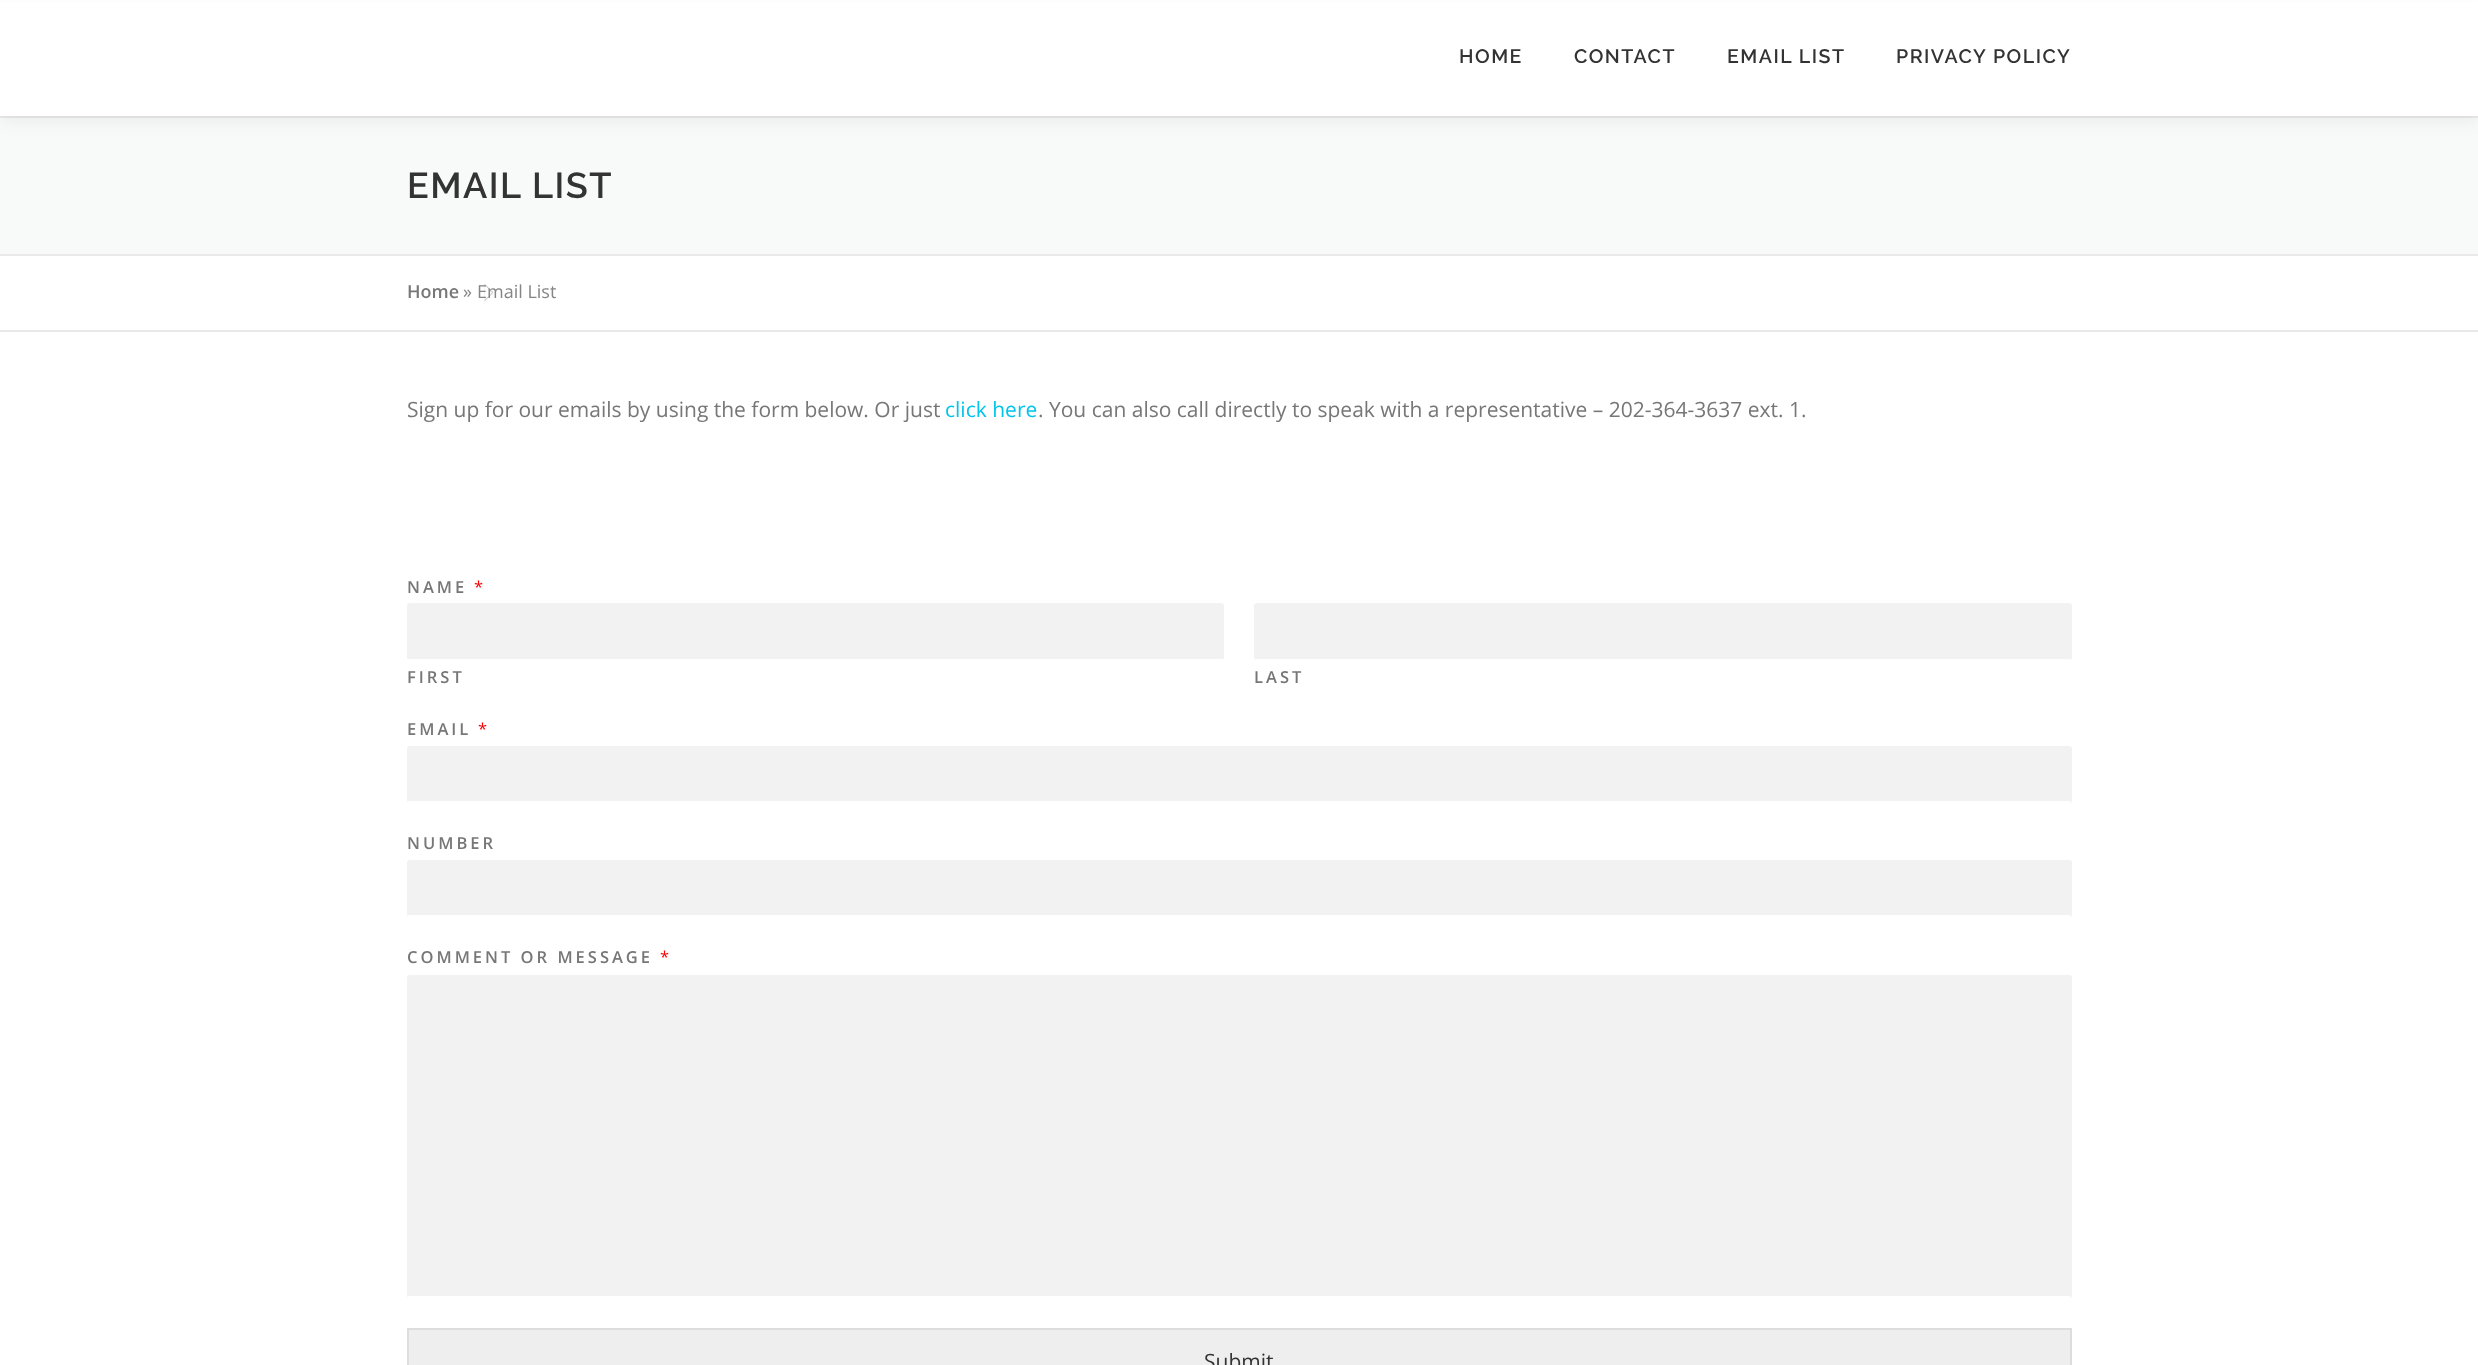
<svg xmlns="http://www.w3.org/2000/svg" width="2478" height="1365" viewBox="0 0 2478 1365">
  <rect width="100%" height="100%" fill="#fff"/>
  <path d="M0 118h2478v136H0z" fill="#f8f9f9"/>
  <path d="M0 116h2478v2H0z" fill="#e9e9e9"/>
  <path d="M0 8h2478v115H0z" fill="#3232320f" filter="blur(7.5px)"/>
  <path d="M0 2h2478v114H0z" fill="#fff"/>
  <path d="M0 254h2478v2H0z" fill="#e9e9e9"/>
  <path d="M0 330h2478v2H0z" fill="#e9e9e9"/>
  <path d="M484.5 301.5V283.5L493.5 292.5Z" fill="#ccc"/>
  <path d="M484.5 300V285L492 292.5Z" fill="#fff"/>
  <rect x="407" y="603" width="817" height="57" rx="3" fill="#f2f2f2"/>
  <path d="M408 659h815v1H408z" fill="#fff"/>
  <rect x="1254" y="603" width="818" height="57" rx="3" fill="#f2f2f2"/>
  <path d="M1256 659h814v1H1256z" fill="#fff"/>
  <rect x="407" y="746" width="1665" height="57" rx="3" fill="#f2f2f2"/>
  <path d="M408 801h1662v2H408z" fill="#fff"/>
  <rect x="407" y="860" width="1665" height="57" rx="3" fill="#f2f2f2"/>
  <path d="M408 915h1662v2H408z" fill="#fff"/>
  <rect x="407" y="975" width="1665" height="323" rx="3" fill="#f2f2f2"/>
  <path d="M408 1296h1662v2H408z" fill="#fff"/>
  <path d="M408 1329h1663v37H408z" fill="#eee" stroke="#ddd" stroke-width="2"/>
  <g font-family="Raleway" font-size="19.5" font-weight="600" letter-spacing="1.5" fill="#333">
    <text x="1459" y="63">HOME</text>
    <text x="1574" y="63">CONTACT</text>
    <text x="1727" y="63">EMAIL LIST</text>
    <text x="1896" y="63">PRIVACY POLICY</text>
  </g>
  <text x="407" y="198" font-family="Raleway" font-size="36" font-weight="600" letter-spacing="1.5" fill="#333">EMAIL LIST</text>
  <text x="407" y="298" font-family="Open Sans" font-size="18" font-weight="600" fill="#777">Home</text>
  <g font-family="Open Sans" font-size="18" fill="#858585">
    <text x="463" y="298">»</text>
    <text x="477" y="298">Email List</text>
  </g>
  <text x="407" y="417" font-family="Open Sans" font-size="21" fill="#777">Sign up for our emails by using the form below. Or just</text>
  <text x="945" y="417" font-family="Open Sans" font-size="21" fill="#03c4eb">click here</text>
  <text x="1038" y="417" font-family="Open Sans" font-size="21" fill="#777">. You can also call directly to speak with a representative – 202-364-3637 ext. 1.</text>
  <text x="407" y="593" font-family="Open Sans" font-size="16.5" font-weight="600" letter-spacing="3" fill="#777">NAME</text>
  <text x="474" y="593" font-family="Open Sans" font-size="16.5" fill="#f00">*</text>
  <g font-family="Open Sans" font-size="16.5" font-weight="600" letter-spacing="3" fill="#777">
    <text x="407" y="683">FIRST</text>
    <text x="1254" y="683">LAST</text>
    <text x="407" y="735">EMAIL</text>
  </g>
  <text x="478" y="735" font-family="Open Sans" font-size="16.5" fill="#f00">*</text>
  <g font-family="Open Sans" font-size="16.5" font-weight="600" letter-spacing="3" fill="#777">
    <text x="407" y="849">NUMBER</text>
    <text x="407" y="963">COMMENT OR MESSAGE</text>
  </g>
  <text x="660" y="963" font-family="Open Sans" font-size="16.5" fill="#f00">*</text>
  <text x="1204" y="1369" font-family="Open Sans" font-size="21" fill="#333">Submit</text>
</svg>
